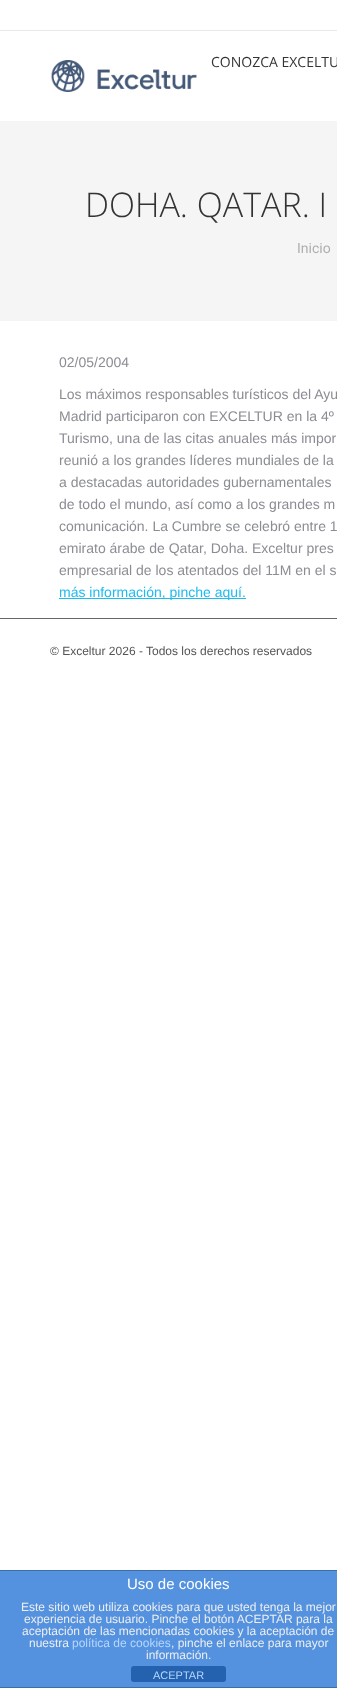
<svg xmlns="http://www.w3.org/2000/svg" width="337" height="1688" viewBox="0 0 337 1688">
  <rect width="100%" height="100%" fill="#fff"/>
  <path d="M0 30h337v1H0z" fill="#e9e9e9"/>
  <image x="51" y="60" width="146" height="32" href="img/1.png"/>
  <path d="M0 121h337v200H0z" fill="#f5f5f5"/>
  <path d="M59 598h187v1H59z" fill="#1ebbf0"/>
  <path d="M0 618h337v1H0z" fill="#666"/>
  <path d="M0 1571h337v116H0z" fill="#5492e0"/>
  <path d="M0 1570h337v1H0z" fill="#3f6da7"/>
  <path d="M0 1687h337v1H0z" fill="#3f6da7"/>
  <rect x="131" y="1666" width="95" height="16" rx="3" fill="#2462b0"/>
  <text x="211" y="67" font-family="Open Sans" font-size="14" fill="#333">CONOZCA EXCELTU</text>
  <text x="85" y="217" font-family="Open Sans" font-size="34" font-weight="300" fill="#333">DOHA. QATAR. I</text>
  <text x="297" y="253" font-family="Roboto" font-size="14" fill="#adafb3">Inicio</text>
  <g font-family="Liberation Sans" font-size="14" fill="#8b8d94">
    <text x="59" y="367">02/05/2004</text>
    <text x="59" y="399">Los máximos responsables turísticos del Ayu</text>
    <text x="59" y="421">Madrid participaron con EXCELTUR en la 4º</text>
    <text x="59" y="443">Turismo, una de las citas anuales más impor</text>
    <text x="59" y="465">reunió a los grandes líderes mundiales de la</text>
    <text x="59" y="487">a destacadas autoridades gubernamentales</text>
    <text x="59" y="509">de todo el mundo, así como a los grandes m</text>
    <text x="59" y="531">comunicación. La Cumbre se celebró entre 1</text>
    <text x="59" y="553">emirato árabe de Qatar, Doha. Exceltur pres</text>
    <text x="59" y="575">empresarial de los atentados del 11M en el s</text>
  </g>
  <text x="59" y="597" font-family="Liberation Sans" font-size="14" fill="#1ebbf0">más información, pinche aquí.</text>
  <text x="50" y="655" font-family="Liberation Sans" font-size="12" fill="#545454">© Exceltur 2026 - Todos los derechos reservados</text>
  <text x="127" y="1589" font-family="Liberation Sans" font-size="15" fill="#fff">Uso de cookies</text>
  <g font-family="Liberation Sans" font-size="12" fill="#eee">
    <text x="21" y="1611">Este sitio web utiliza cookies para que usted tenga la mejor</text>
    <text x="24" y="1623">experiencia de usuario. Pinche el botón ACEPTAR para la</text>
    <text x="22" y="1635">aceptación de las mencionadas cookies y la aceptación de</text>
    <text x="29" y="1647">nuestra</text>
  </g>
  <text x="72" y="1647" font-family="Liberation Sans" font-size="12" fill="#b7d7ff">política de cookies</text>
  <g font-family="Liberation Sans" font-size="12" fill="#eee">
    <text x="171" y="1647">, pinche el enlace para mayor</text>
    <text x="146" y="1659">información.</text>
  </g>
  <text x="153" y="1679" font-family="Liberation Sans" font-size="11" fill="#b7d7ff">ACEPTAR</text>
</svg>
